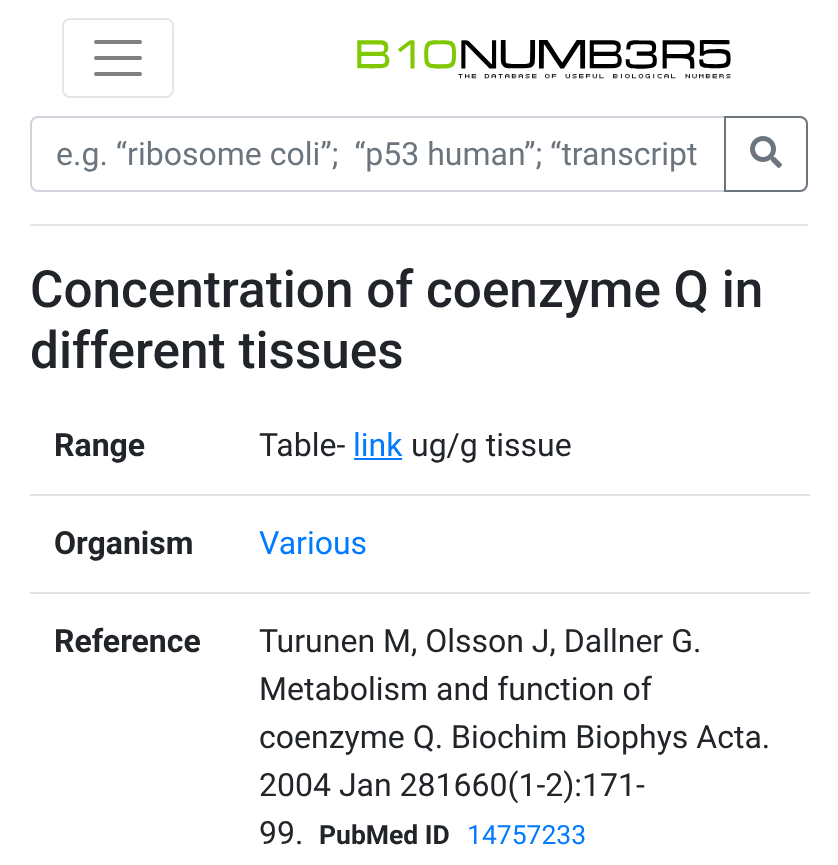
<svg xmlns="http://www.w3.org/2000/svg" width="838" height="865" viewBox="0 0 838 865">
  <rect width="100%" height="100%" fill="#fff"/>
  <rect x="63" y="19" width="110" height="78" rx="7" fill="none" stroke="#e6e6e6" stroke-width="2"/>
  <path d="M96 42H140M96 58H140M96 74H140" fill="none" stroke="#808080" stroke-width="4" stroke-linecap="round"/>
  <image x="357" y="40" width="374" height="39" href="img/1.png"/>
  <path d="M38 117H725V191H38C34 191 31 188 31 184V124C31 120 34 117 38 117Z" fill="none" stroke="#ced4da" stroke-width="2"/>
  <path d="M725 117H800C804 117 807 120 807 124V184C807 188 804 191 800 191H725Z" fill="none" stroke="#6c757d" stroke-width="2"/>
  <image x="750" y="136" width="32" height="32" href="img/2.png"/>
  <path d="M30 224h778v2H30z" fill="#e6e6e6"/>
  <path d="M354 458h48v2H354z" fill="#007bff"/>
  <path d="M30 494h780v2H30z" fill="#dee2e6"/>
  <path d="M30 592h780v2H30z" fill="#dee2e6"/>
  <text x="56" y="165" font-family="Roboto" font-size="32" fill="#6c757d" xml:space="preserve">e.g. “ribosome coli”;  “p53 human”; “transcript</text>
  <g font-family="Roboto" font-size="51.25" font-weight="500" fill="#212529">
    <text x="30" y="307">Concentration of coenzyme Q in</text>
    <text x="30" y="368">different tissues</text>
  </g>
  <text x="54" y="456" font-family="Roboto" font-size="32" font-weight="bold" fill="#212529">Range</text>
  <text x="259" y="456" font-family="Roboto" font-size="32" fill="#212529">Table-</text>
  <text x="353" y="456" font-family="Roboto" font-size="32" fill="#007bff">link</text>
  <text x="411" y="456" font-family="Roboto" font-size="32" fill="#212529">ug/g tissue</text>
  <text x="54" y="554" font-family="Roboto" font-size="32" font-weight="bold" fill="#212529">Organism</text>
  <text x="259" y="554" font-family="Roboto" font-size="32" fill="#007bff">Various</text>
  <text x="54" y="652" font-family="Roboto" font-size="32" font-weight="bold" fill="#212529">Reference</text>
  <g font-family="Roboto" font-size="32" fill="#212529">
    <text x="259" y="652">Turunen M, Olsson J, Dallner G.</text>
    <text x="259" y="700">Metabolism and function of</text>
    <text x="259" y="748">coenzyme Q. Biochim Biophys Acta.</text>
    <text x="259" y="796">2004 Jan 281660(1-2):171-</text>
    <text x="259" y="844">99.</text>
  </g>
  <text x="319" y="844" font-family="Roboto" font-size="26.5" font-weight="bold" fill="#212529">PubMed ID</text>
  <text x="467" y="844" font-family="Roboto" font-size="26.5" fill="#007bff">14757233</text>
</svg>
